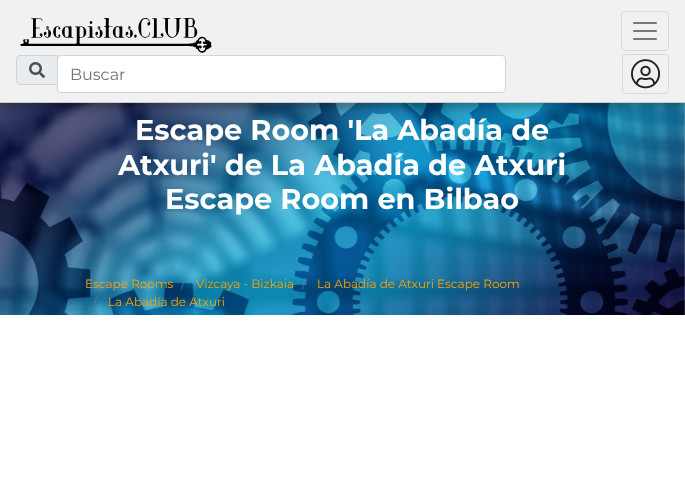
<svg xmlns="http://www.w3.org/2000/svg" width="685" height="482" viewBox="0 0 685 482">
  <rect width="100%" height="100%" fill="#fff"/>
  <image x="0" y="103" width="685" height="212" href="img/5.png"/>
  <path d="M0 5h685v103H0z" fill="#0000004d" filter="blur(5px)"/>
  <path d="M0 0h685v102H0z" fill="#f1f1f1"/>
  <path d="M0 102h685v1H0z" fill="#cbcbcb"/>
  <image x="20" y="18" width="192" height="35" href="img/1.png"/>
  <rect x="621.5" y="11.5" width="47" height="39" rx="3.5" fill="none" stroke="#d9d9d9"/>
  <image x="633" y="22" width="24" height="18" href="img/2.png"/>
  <path d="M20 55.5H57.5V84.5H20C18 84.5 16.5 83 16.5 81V59C16.5 57 18 55.5 20 55.5Z" fill="#e9ecef" stroke="#ced4da"/>
  <image x="29" y="62" width="16" height="16" href="img/3.png"/>
  <rect x="57.5" y="55.5" width="448" height="37" rx="3.5" fill="#fff" stroke="#ced4da"/>
  <rect x="622.5" y="54.5" width="46" height="39" rx="3.5" fill="none" stroke="#d9d9d9"/>
  <image x="631" y="59" width="30" height="30" href="img/4.png"/>
  <text x="70" y="80" font-family="Montserrat" font-size="16" fill="#6c757d">Buscar</text>
  <g font-family="Montserrat" font-size="28.75" font-weight="bold" fill="#fff">
    <text x="135" y="140">Escape Room 'La Abadía de</text>
    <text x="118" y="175">Atxuri' de La Abadía de Atxuri</text>
    <text x="165" y="209">Escape Room en Bilbao</text>
  </g>
  <text x="85" y="288" font-family="Montserrat" font-size="12" fill="#ffa200">Escape Rooms</text>
  <text x="181" y="288" font-family="Montserrat" font-size="12" fill="#6c757d">/</text>
  <text x="196" y="288" font-family="Montserrat" font-size="12" fill="#ffa200">Vizcaya - Bizkaia</text>
  <text x="302" y="288" font-family="Montserrat" font-size="12" fill="#6c757d">/</text>
  <text x="317" y="288" font-family="Montserrat" font-size="12" fill="#ffa200">La Abadía de Atxuri Escape Room</text>
  <text x="93" y="306" font-family="Montserrat" font-size="12" fill="#6c757d">/</text>
  <text x="108" y="306" font-family="Montserrat" font-size="12" fill="#ffa200">La Abadía de Atxuri</text>
</svg>
